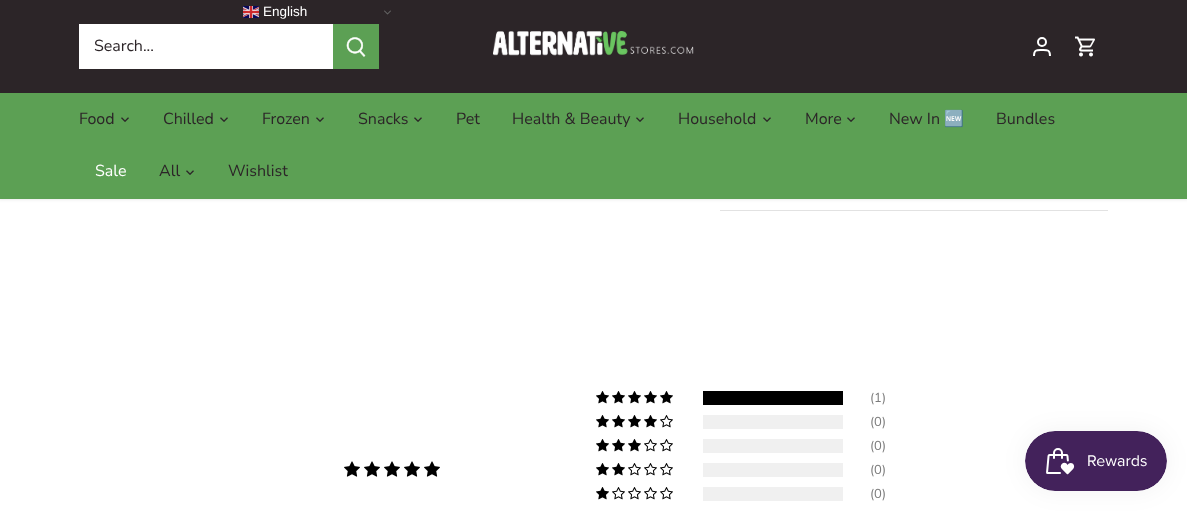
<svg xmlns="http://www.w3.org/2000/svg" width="1187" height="511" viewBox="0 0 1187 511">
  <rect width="100%" height="100%" fill="#fff"/>
  <path d="M-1 -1h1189v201H-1z" fill="#00000014" filter="blur(1.5px)"/>
  <path d="M0 0h1187v93H0z" fill="#2c2528"/>
  <image x="243" y="6" width="16" height="12" href="img/1.png"/>
  <image x="384" y="10" width="7" height="5" href="img/2.png"/>
  <path d="M0 93h1187v106H0z" fill="#5ca054"/>
  <path d="M79 24h254v45H79z" fill="#fff"/>
  <path d="M333 24h46v45H333z" fill="#5ca054"/>
  <image x="346" y="37" width="20" height="20" href="img/3.png"/>
  <image x="493" y="31" width="201" height="25" href="img/4.png"/>
  <circle cx="1042" cy="42" r="4" fill="none" stroke="#fff" stroke-width="2"/>
  <path d="M1050 56C1050 49.5 1047.5 50 1042 50C1036.5 50 1034 49.5 1034 56" fill="none" stroke="#fff" stroke-width="2"/>
  <image x="1075" y="36" width="20" height="21" href="img/5.png"/>
  <image x="121" y="117" width="8" height="5" href="img/6.png"/>
  <image x="220" y="117" width="8" height="5" href="img/6.png"/>
  <image x="316" y="117" width="8" height="5" href="img/6.png"/>
  <image x="414" y="117" width="8" height="5" href="img/6.png"/>
  <image x="636" y="117" width="8" height="5" href="img/6.png"/>
  <image x="763" y="117" width="8" height="5" href="img/6.png"/>
  <image x="847" y="117" width="8" height="5" href="img/6.png"/>
  <image x="186" y="170" width="8" height="5" href="img/6.png"/>
  <path d="M720 210h388v1H720z" fill="#e2e2e2"/>
  <image x="344" y="461" width="16" height="16" href="img/7.png"/>
  <image x="364" y="461" width="16" height="16" href="img/7.png"/>
  <image x="384" y="461" width="16" height="16" href="img/7.png"/>
  <image x="404" y="461" width="16" height="16" href="img/7.png"/>
  <image x="424" y="461" width="16" height="16" href="img/7.png"/>
  <image x="596" y="391" width="13" height="13" href="img/8.png"/>
  <image x="612" y="391" width="13" height="13" href="img/8.png"/>
  <image x="628" y="391" width="13" height="13" href="img/8.png"/>
  <image x="644" y="391" width="13" height="13" href="img/8.png"/>
  <image x="660" y="391" width="13" height="13" href="img/8.png"/>
  <path d="M703 391h140v14H703z" fill="#000"/>
  <image x="596" y="415" width="13" height="13" href="img/8.png"/>
  <image x="612" y="415" width="13" height="13" href="img/8.png"/>
  <image x="628" y="415" width="13" height="13" href="img/8.png"/>
  <image x="644" y="415" width="13" height="13" href="img/8.png"/>
  <image x="660" y="415" width="13" height="13" href="img/9.png"/>
  <path d="M703 415h140v14H703z" fill="#f0f0f0"/>
  <image x="596" y="439" width="13" height="13" href="img/8.png"/>
  <image x="612" y="439" width="13" height="13" href="img/8.png"/>
  <image x="628" y="439" width="13" height="13" href="img/8.png"/>
  <image x="644" y="439" width="13" height="13" href="img/9.png"/>
  <image x="660" y="439" width="13" height="13" href="img/9.png"/>
  <path d="M703 439h140v14H703z" fill="#f0f0f0"/>
  <image x="596" y="463" width="13" height="13" href="img/8.png"/>
  <image x="612" y="463" width="13" height="13" href="img/8.png"/>
  <image x="628" y="463" width="13" height="13" href="img/9.png"/>
  <image x="644" y="463" width="13" height="13" href="img/9.png"/>
  <image x="660" y="463" width="13" height="13" href="img/9.png"/>
  <path d="M703 463h140v14H703z" fill="#f0f0f0"/>
  <image x="596" y="487" width="13" height="13" href="img/8.png"/>
  <image x="612" y="487" width="13" height="13" href="img/9.png"/>
  <image x="628" y="487" width="13" height="13" href="img/9.png"/>
  <image x="644" y="487" width="13" height="13" href="img/9.png"/>
  <image x="660" y="487" width="13" height="13" href="img/9.png"/>
  <path d="M703 487h140v14H703z" fill="#f0f0f0"/>
  <rect x="1025" y="431" width="142" height="60" rx="30" fill="#0000000d" filter="blur(12.5px)"/>
  <image x="1025" y="431" width="142" height="60" href="img/10.png"/>
  <text x="263" y="16" font-family="Liberation Sans" font-size="13.5" fill="#fff">English</text>
  <g font-family="Nunito Sans" font-size="16" fill="#2c2528">
    <text x="94" y="51">Search...</text>
    <text x="79" y="124">Food</text>
    <text x="163" y="124">Chilled</text>
    <text x="262" y="124">Frozen</text>
    <text x="358" y="124">Snacks</text>
    <text x="456" y="124">Pet</text>
    <text x="512" y="124">Health &amp; Beauty</text>
    <text x="678" y="124">Household</text>
    <text x="805" y="124">More</text>
    <text x="889" y="124">New In</text>
  </g>
  <text x="944" y="124" font-family="Noto Color Emoji" font-size="16" fill="#2c2528">🆕</text>
  <text x="996" y="124" font-family="Nunito Sans" font-size="16" fill="#2c2528">Bundles</text>
  <text x="95" y="176" font-family="Nunito Sans" font-size="16" fill="#fff">Sale</text>
  <g font-family="Nunito Sans" font-size="16" fill="#2c2528">
    <text x="159" y="176">All</text>
    <text x="228" y="176">Wishlist</text>
  </g>
  <g font-family="Nunito Sans" font-size="13" fill="#7b7b7b">
    <text x="870" y="402">(1)</text>
    <text x="870" y="426">(0)</text>
    <text x="870" y="450">(0)</text>
    <text x="870" y="474">(0)</text>
    <text x="870" y="498">(0)</text>
  </g>
</svg>
